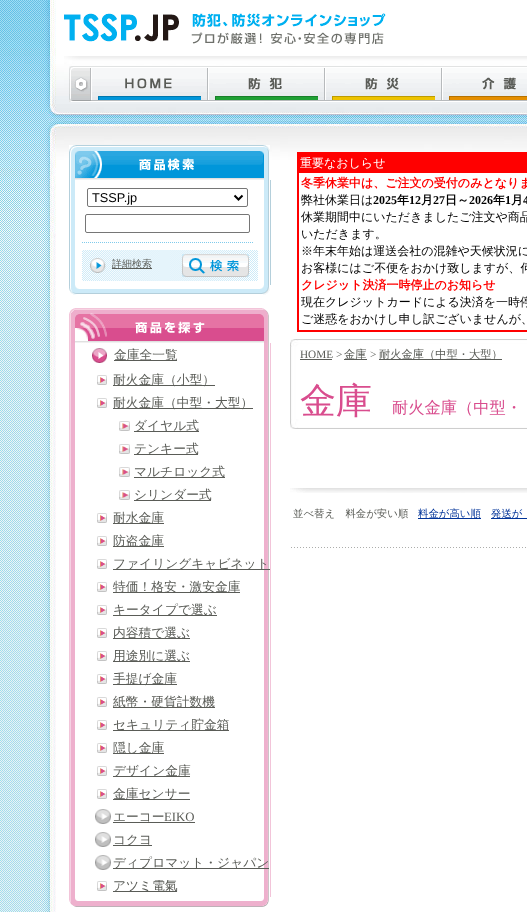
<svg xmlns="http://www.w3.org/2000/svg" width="527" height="912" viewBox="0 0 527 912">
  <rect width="100%" height="100%" fill="#fff"/>
  <image x="0" y="0" width="527" height="912" href="img/1.png"/>
  <image x="64" y="13" width="322" height="31" href="img/2.png"/>
  <image x="69" y="66" width="22" height="36" href="img/3.png"/>
  <image x="91" y="66" width="117" height="36" href="img/4.png"/>
  <image x="208" y="66" width="117" height="36" href="img/5.png"/>
  <image x="325" y="66" width="117" height="36" href="img/6.png"/>
  <image x="442" y="66" width="85" height="36" href="img/7.png"/>
  <image x="69" y="145" width="201" height="35" href="img/8.png"/>
  <image x="69" y="180" width="202" height="105" href="img/9.png"/>
  <path d="M82 242.5H253" fill="none" stroke="#80cbec" stroke-dasharray="1 1"/>
  <rect x="87.5" y="188.5" width="160" height="18" rx="1.5" fill="none" stroke="#767676"/>
  <path d="M234.5 195.5L238.5 199.5L242.5 195.5" fill="none" stroke="#000" stroke-width="2"/>
  <rect x="85.5" y="214.5" width="164" height="18" rx="1.5" fill="none" stroke="#767676"/>
  <image x="82" y="250" width="176" height="31" href="img/10.png"/>
  <path d="M112 268h40v1H112z" fill="#5a5c57"/>
  <image x="182" y="254" width="67" height="23" href="img/11.png"/>
  <image x="69" y="285" width="201" height="10" href="img/12.png"/>
  <image x="69" y="308" width="200" height="35" href="img/13.png"/>
  <image x="69" y="343" width="202" height="554" href="img/14.png"/>
  <image x="92" y="348" width="15" height="15" href="img/15.png"/>
  <path d="M114 360h63v1H114z" fill="#5a5c57"/>
  <image x="97" y="375" width="10" height="10" href="img/16.png"/>
  <path d="M113 385h102v1H113z" fill="#5a5c57"/>
  <image x="97" y="398" width="10" height="10" href="img/16.png"/>
  <path d="M113 408h140v1H113z" fill="#5a5c57"/>
  <image x="119" y="421" width="11" height="10" href="img/17.png"/>
  <path d="M134 431h65v1H134z" fill="#5a5c57"/>
  <image x="119" y="444" width="11" height="10" href="img/17.png"/>
  <path d="M134 454h64v1H134z" fill="#5a5c57"/>
  <image x="119" y="467" width="11" height="10" href="img/17.png"/>
  <path d="M134 477h91v1H134z" fill="#5a5c57"/>
  <image x="119" y="490" width="11" height="10" href="img/17.png"/>
  <path d="M134 500h77v1H134z" fill="#5a5c57"/>
  <image x="97" y="513" width="10" height="10" href="img/16.png"/>
  <path d="M113 523h51v1H113z" fill="#5a5c57"/>
  <image x="97" y="536" width="10" height="10" href="img/16.png"/>
  <path d="M113 546h51v1H113z" fill="#5a5c57"/>
  <image x="97" y="559" width="10" height="10" href="img/16.png"/>
  <path d="M113 569h157v1H113z" fill="#5a5c57"/>
  <image x="97" y="582" width="10" height="10" href="img/16.png"/>
  <path d="M113 592h127v1H113z" fill="#5a5c57"/>
  <image x="97" y="605" width="10" height="10" href="img/16.png"/>
  <path d="M113 615h104v1H113z" fill="#5a5c57"/>
  <image x="97" y="628" width="10" height="10" href="img/16.png"/>
  <path d="M113 638h77v1H113z" fill="#5a5c57"/>
  <image x="97" y="651" width="10" height="10" href="img/16.png"/>
  <path d="M113 661h77v1H113z" fill="#5a5c57"/>
  <image x="97" y="674" width="10" height="10" href="img/16.png"/>
  <path d="M113 684h64v1H113z" fill="#5a5c57"/>
  <image x="97" y="697" width="10" height="10" href="img/16.png"/>
  <path d="M113 707h102v1H113z" fill="#5a5c57"/>
  <image x="97" y="720" width="10" height="10" href="img/16.png"/>
  <path d="M113 730h116v1H113z" fill="#5a5c57"/>
  <image x="97" y="743" width="10" height="10" href="img/16.png"/>
  <path d="M113 753h51v1H113z" fill="#5a5c57"/>
  <image x="97" y="766" width="10" height="10" href="img/16.png"/>
  <path d="M113 776h77v1H113z" fill="#5a5c57"/>
  <image x="97" y="789" width="10" height="10" href="img/16.png"/>
  <path d="M113 799h77v1H113z" fill="#5a5c57"/>
  <image x="95" y="809" width="16" height="15" href="img/18.png"/>
  <path d="M113 822h82v1H113z" fill="#5a5c57"/>
  <image x="95" y="832" width="16" height="15" href="img/18.png"/>
  <path d="M113 845h39v1H113z" fill="#5a5c57"/>
  <image x="95" y="855" width="16" height="15" href="img/18.png"/>
  <path d="M113 868h156v1H113z" fill="#5a5c57"/>
  <image x="97" y="881" width="10" height="10" href="img/16.png"/>
  <path d="M113 891h64v1H113z" fill="#5a5c57"/>
  <image x="69" y="897" width="200" height="10" href="img/19.png"/>
  <path d="M298 153h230v178H298z" fill="none" stroke="#f00" stroke-width="2"/>
  <path d="M299 154h228v19H299z" fill="#f00"/>
  <image x="290" y="339" width="237" height="90" href="img/20.png"/>
  <path d="M300 359h32v1H300z" fill="#5a5c57"/>
  <path d="M344 359h23v1H344z" fill="#5a5c57"/>
  <path d="M379 359h123v1H379z" fill="#5a5c57"/>
  <image x="290" y="488" width="237" height="5" href="img/21.png"/>
  <path d="M418 518h63v1H418z" fill="#039"/>
  <path d="M491 518h36v1H491z" fill="#039"/>
  <image x="291" y="547" width="235" height="1" href="img/22.png"/>
  <text x="92" y="202" font-family="Liberation Sans" font-size="12.75" fill="#000">TSSP.jp</text>
  <text x="112" y="267" font-family="WenQuanYi Zen Hei" font-size="10" font-weight="500" fill="#5a5c57">詳細検索</text>
  <g font-family="WenQuanYi Zen Hei" font-size="12.75" font-weight="500" fill="#5a5c57">
    <text x="114" y="359">金庫全一覧</text>
    <text x="113" y="384">耐火金庫（小型）</text>
    <text x="113" y="407">耐火金庫（中型・大型）</text>
    <text x="134" y="430">ダイヤル式</text>
    <text x="134" y="453">テンキー式</text>
    <text x="134" y="476">マルチロック式</text>
    <text x="134" y="499">シリンダー式</text>
    <text x="113" y="522">耐水金庫</text>
    <text x="113" y="545">防盗金庫</text>
    <text x="113" y="568">ファイリングキャビネット</text>
    <text x="113" y="591">特価！格安・激安金庫</text>
    <text x="113" y="614">キータイプで選ぶ</text>
    <text x="113" y="637">内容積で選ぶ</text>
    <text x="113" y="660">用途別に選ぶ</text>
    <text x="113" y="683">手提げ金庫</text>
    <text x="113" y="706">紙幣・硬貨計数機</text>
    <text x="113" y="729">セキュリティ貯金箱</text>
    <text x="113" y="752">隠し金庫</text>
    <text x="113" y="775">デザイン金庫</text>
    <text x="113" y="798">金庫センサー</text>
    <text x="113" y="821">エーコー</text>
  </g>
  <text x="164" y="821" font-family="Liberation Serif" font-size="12.75" fill="#5a5c57">EIKO</text>
  <g font-family="WenQuanYi Zen Hei" font-size="12.75" font-weight="500" fill="#5a5c57">
    <text x="113" y="844">コクヨ</text>
    <text x="113" y="867">ディプロマット・ジャパン</text>
    <text x="113" y="890">アツミ電氣</text>
  </g>
  <text x="300" y="167" font-family="WenQuanYi Zen Hei" font-size="12" font-weight="500" fill="#fff">重要なおしらせ</text>
  <text x="301" y="187" font-family="WenQuanYi Zen Hei" font-size="12" font-weight="bold" fill="#f00">冬季休業中は、ご注文の受付のみとなりま</text>
  <text x="301" y="204" font-family="WenQuanYi Zen Hei" font-size="12" font-weight="500" fill="#000">弊社休業日は</text>
  <text x="373" y="204" font-family="Liberation Serif" font-size="12" font-weight="bold" fill="#000">2025</text>
  <text x="397" y="204" font-family="WenQuanYi Zen Hei" font-size="12" font-weight="bold" fill="#000">年</text>
  <text x="409" y="204" font-family="Liberation Serif" font-size="12" font-weight="bold" fill="#000">12</text>
  <text x="421" y="204" font-family="WenQuanYi Zen Hei" font-size="12" font-weight="bold" fill="#000">月</text>
  <text x="433" y="204" font-family="Liberation Serif" font-size="12" font-weight="bold" fill="#000">27</text>
  <text x="445" y="204" font-family="WenQuanYi Zen Hei" font-size="12" font-weight="bold" fill="#000">日～</text>
  <text x="469" y="204" font-family="Liberation Serif" font-size="12" font-weight="bold" fill="#000">2026</text>
  <text x="493" y="204" font-family="WenQuanYi Zen Hei" font-size="12" font-weight="bold" fill="#000">年</text>
  <text x="505" y="204" font-family="Liberation Serif" font-size="12" font-weight="bold" fill="#000">1</text>
  <text x="511" y="204" font-family="WenQuanYi Zen Hei" font-size="12" font-weight="bold" fill="#000">月</text>
  <text x="523" y="204" font-family="Liberation Serif" font-size="12" font-weight="bold" fill="#000">4</text>
  <g font-family="WenQuanYi Zen Hei" font-size="12" font-weight="500" fill="#000">
    <text x="301" y="221">休業期間中にいただきましたご注文や商品</text>
    <text x="301" y="238">いただきます。</text>
    <text x="301" y="255">※年末年始は運送会社の混雑や天候状況に</text>
    <text x="301" y="272">お客様にはご不便をおかけ致しますが、何</text>
  </g>
  <text x="301" y="289" font-family="WenQuanYi Zen Hei" font-size="12" font-weight="bold" fill="#f00">クレジット決済一時停止のお知らせ</text>
  <g font-family="WenQuanYi Zen Hei" font-size="12" font-weight="500" fill="#000">
    <text x="301" y="306">現在クレジットカードによる決済を一時停</text>
    <text x="301" y="323">ご迷惑をおかけし申し訳ございませんが、</text>
  </g>
  <text x="300" y="358" font-family="Liberation Serif" font-size="11.25" fill="#5a5c57">HOME &gt;</text>
  <text x="344" y="358" font-family="WenQuanYi Zen Hei" font-size="11.25" font-weight="500" fill="#5a5c57">金庫</text>
  <text x="370" y="358" font-family="Liberation Serif" font-size="11.25" fill="#5a5c57">&gt;</text>
  <text x="379" y="358" font-family="WenQuanYi Zen Hei" font-size="11.25" font-weight="500" fill="#5a5c57">耐火金庫（中型・大型）</text>
  <text x="300" y="413" font-family="WenQuanYi Zen Hei" font-size="36" font-weight="500" fill="#d94d8e">金庫</text>
  <text x="392" y="413" font-family="WenQuanYi Zen Hei" font-size="16.25" font-weight="500" fill="#d94d8e">耐火金庫（中型・</text>
  <text x="293" y="517" font-family="WenQuanYi Zen Hei" font-size="10.4" font-weight="500" fill="#5a5c57">並べ替え　料金が安い順</text>
  <g font-family="WenQuanYi Zen Hei" font-size="10.4" font-weight="500" fill="#039">
    <text x="418" y="517">料金が高い順</text>
    <text x="491" y="517">発送が</text>
  </g>
</svg>
